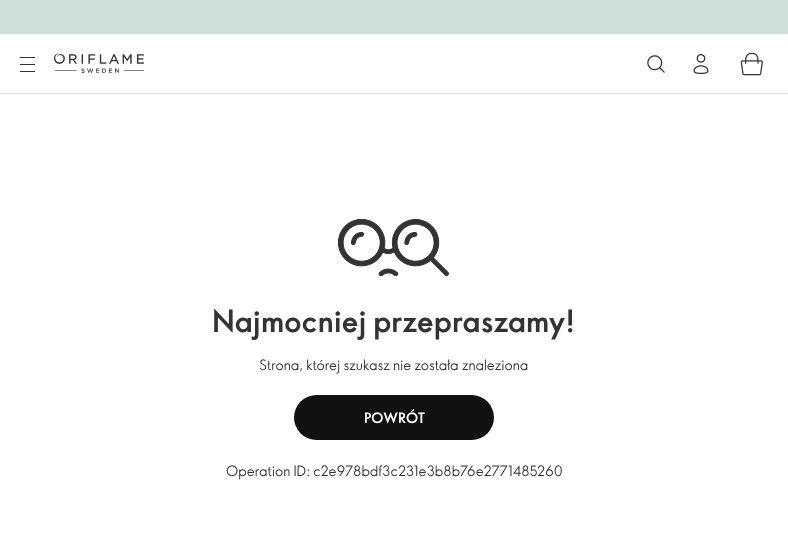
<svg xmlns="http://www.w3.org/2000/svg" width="788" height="533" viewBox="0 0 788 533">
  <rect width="100%" height="100%" fill="#fff"/>
  <path d="M0 93h788v1H0z" fill="#e5e5e5"/>
  <path d="M0 0h788v34H0z" fill="#cedfd7"/>
  <path d="M20 57h15v1H20z" fill="#333"/>
  <path d="M20 64h15v1H20z" fill="#333"/>
  <path d="M20 71h15v1H20z" fill="#333"/>
  <image x="54" y="53" width="90" height="20" href="img/1.png"/>
  <image x="647" y="55" width="18" height="18" href="img/2.png"/>
  <image x="693" y="54" width="16" height="20" href="img/3.png"/>
  <image x="740" y="52" width="23" height="24" href="img/4.png"/>
  <image x="338" y="219" width="111" height="57" href="img/5.png"/>
  <rect x="294" y="395" width="200" height="45" rx="22.5" fill="#111"/>
  <text x="212" y="332" font-family="'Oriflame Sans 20'" font-size="30" font-weight="bold" fill="#333">Najmocniej przepraszamy!</text>
  <text x="259" y="370" font-family="'Oriflame Sans 20'" font-size="14" fill="#333">Strona, której szukasz nie została znaleziona</text>
  <text x="364" y="423" font-family="'Oriflame Sans 20'" font-size="14" font-weight="bold" fill="#fff">POWRÓT</text>
  <text x="226" y="476" font-family="'Oriflame Sans 20'" font-size="14" fill="#333">Operation ID: c2e978bdf3c231e3b8b76e2771485260</text>
</svg>
